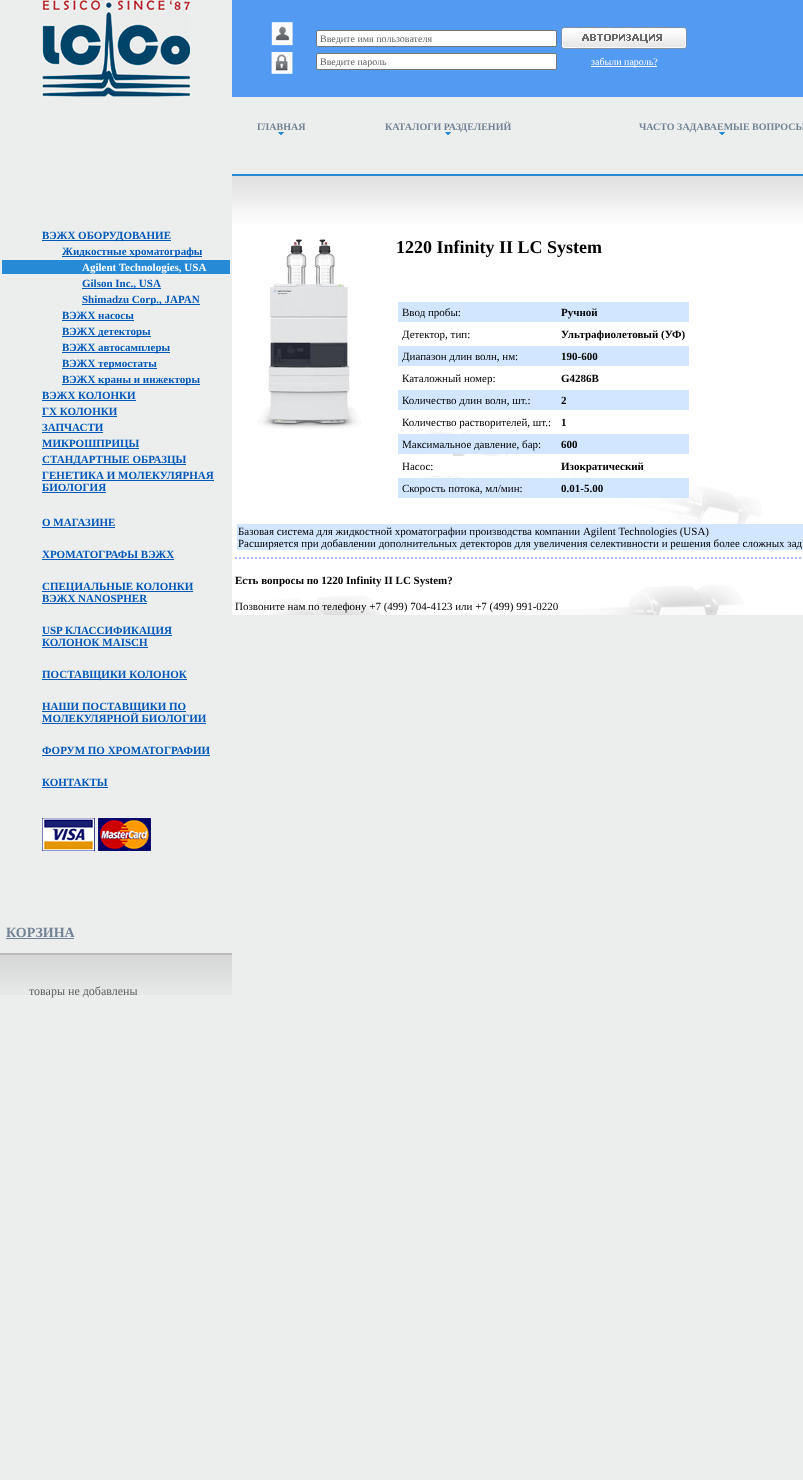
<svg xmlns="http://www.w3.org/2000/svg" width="803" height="1480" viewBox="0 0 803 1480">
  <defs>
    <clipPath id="clip1"><path d="M320 56h233v11H320z"/></clipPath>
  </defs>
  <rect width="100%" height="100%" fill="#eceeed"/>
  <image x="41" y="0" width="149" height="97" href="img/1.png"/>
  <path d="M42 240h129v1H42z" fill="#0158b9"/>
  <path d="M62 256h140v1H62z" fill="#0158b9"/>
  <path d="M2 260h228v14H2z" fill="#278ad7"/>
  <path d="M82 288h79v1H82z" fill="#0158b9"/>
  <path d="M82 304h118v1H82z" fill="#0158b9"/>
  <path d="M62 320h72v1H62z" fill="#0158b9"/>
  <path d="M62 336h89v1H62z" fill="#0158b9"/>
  <path d="M62 352h108v1H62z" fill="#0158b9"/>
  <path d="M62 368h95v1H62z" fill="#0158b9"/>
  <path d="M62 384h138v1H62z" fill="#0158b9"/>
  <path d="M42 400h94v1H42z" fill="#0158b9"/>
  <path d="M42 416h75v1H42z" fill="#0158b9"/>
  <path d="M42 432h61v1H42z" fill="#0158b9"/>
  <path d="M42 448h97v1H42z" fill="#0158b9"/>
  <path d="M42 464h144v1H42z" fill="#0158b9"/>
  <path d="M42 480h172v1H42z" fill="#0158b9"/>
  <path d="M42 492h64v1H42z" fill="#0158b9"/>
  <path d="M42 527h73v1H42z" fill="#0158b9"/>
  <path d="M42 559h132v1H42z" fill="#0158b9"/>
  <path d="M42 591h151v1H42z" fill="#0158b9"/>
  <path d="M42 603h105v1H42z" fill="#0158b9"/>
  <path d="M42 635h130v1H42z" fill="#0158b9"/>
  <path d="M42 647h106v1H42z" fill="#0158b9"/>
  <path d="M42 679h145v1H42z" fill="#0158b9"/>
  <path d="M42 711h144v1H42z" fill="#0158b9"/>
  <path d="M42 723h164v1H42z" fill="#0158b9"/>
  <path d="M42 755h168v1H42z" fill="#0158b9"/>
  <path d="M42 787h66v1H42z" fill="#0158b9"/>
  <image x="42" y="818" width="53" height="33" href="img/2.png"/>
  <image x="98" y="818" width="53" height="33" href="img/3.png"/>
  <path d="M6 938h68v1H6z" fill="#738395"/>
  <path d="M0 953h232v2H0z" fill="#bbb"/>
  <image x="0" y="955" width="232" height="40" href="img/4.png"/>
  <path d="M232 0h571v97H232z" fill="#539af2"/>
  <image x="271" y="22" width="22" height="52" href="img/5.png"/>
  <rect x="316.5" y="30.5" width="240" height="16" rx="1.5" fill="#fff" stroke="#767676"/>
  <image x="561" y="27" width="126" height="22" href="img/6.png"/>
  <rect x="316.5" y="53.5" width="240" height="16" rx="1.5" fill="#fff" stroke="#767676"/>
  <path d="M591 66h66v1H591z" fill="#fff"/>
  <image x="278" y="132" width="6" height="3" href="img/7.png"/>
  <path d="M232 174h571v2H232z" fill="#278ad7"/>
  <image x="232" y="176" width="571" height="52" href="img/8.png"/>
  <path d="M232 228h571v387H232z" fill="#fff"/>
  <image x="269" y="425" width="493" height="190" href="img/9.png"/>
  <image x="257" y="239" width="105" height="190" href="img/10.png"/>
  <path d="M398 302h291v20H398z" fill="#d2e7ff"/>
  <path d="M398 346h291v20H398z" fill="#d2e7ff"/>
  <path d="M398 390h291v20H398z" fill="#d2e7ff"/>
  <path d="M424 425h27v7H424z" fill="#fff"/>
  <path d="M398 434h291v20H398z" fill="#d2e7ff"/>
  <path d="M410 456h163v20H410z" fill="#fff"/>
  <path d="M398 478h291v20H398z" fill="#d2e7ff"/>
  <path d="M237 524h566v26H237z" fill="#d2e7ff"/>
  <path d="M235 558H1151" fill="none" stroke="#a9c0ff" stroke-width="2" stroke-dasharray="2 2"/>
  <g font-family="Liberation Serif" font-size="11" font-weight="bold" fill="#0158b9">
    <text x="42" y="239">ВЭЖХ ОБОРУДОВАНИЕ</text>
    <text x="62" y="255">Жидкостные хроматографы</text>
  </g>
  <text x="82" y="271" font-family="Liberation Serif" font-size="11" font-weight="bold" fill="#fff">Agilent Technologies, USA</text>
  <g font-family="Liberation Serif" font-size="11" font-weight="bold" fill="#0158b9">
    <text x="82" y="287">Gilson Inc., USA</text>
    <text x="82" y="303">Shimadzu Corp., JAPAN</text>
    <text x="62" y="319">ВЭЖХ насосы</text>
    <text x="62" y="335">ВЭЖХ детекторы</text>
    <text x="62" y="351">ВЭЖХ автосамплеры</text>
    <text x="62" y="367">ВЭЖХ термостаты</text>
    <text x="62" y="383">ВЭЖХ краны и инжекторы</text>
    <text x="42" y="399">ВЭЖХ КОЛОНКИ</text>
    <text x="42" y="415">ГХ КОЛОНКИ</text>
    <text x="42" y="431">ЗАПЧАСТИ</text>
    <text x="42" y="447">МИКРОШПРИЦЫ</text>
    <text x="42" y="463">СТАНДАРТНЫЕ ОБРАЗЦЫ</text>
    <text x="42" y="479">ГЕНЕТИКА И МОЛЕКУЛЯРНАЯ</text>
    <text x="42" y="491">БИОЛОГИЯ</text>
    <text x="42" y="526">О МАГАЗИНЕ</text>
    <text x="42" y="558">ХРОМАТОГРАФЫ ВЭЖХ</text>
    <text x="42" y="590">СПЕЦИАЛЬНЫЕ КОЛОНКИ</text>
    <text x="42" y="602">ВЭЖХ NANOSPHER</text>
    <text x="42" y="634">USP КЛАССИФИКАЦИЯ</text>
    <text x="42" y="646">КОЛОНОК MAISCH</text>
    <text x="42" y="678">ПОСТАВЩИКИ КОЛОНОК</text>
    <text x="42" y="710">НАШИ ПОСТАВЩИКИ ПО</text>
    <text x="42" y="722">МОЛЕКУЛЯРНОЙ БИОЛОГИИ</text>
    <text x="42" y="754">ФОРУМ ПО ХРОМАТОГРАФИИ</text>
    <text x="42" y="786">КОНТАКТЫ</text>
  </g>
  <text x="6" y="937" font-family="Liberation Serif" font-size="14" font-weight="bold" fill="#738395">КОРЗИНА</text>
  <text x="29" y="995" font-family="Liberation Serif" font-size="12" fill="#616161">товары не добавлены</text>
  <text x="320" y="42" font-family="Liberation Serif" font-size="10" fill="#616161">Введите имя пользователя</text>
  <g clip-path="url(#clip1)">
    <text x="320" y="65" font-family="Liberation Serif" font-size="10" fill="#616161">Введите пароль</text>
  </g>
  <text x="591" y="65" font-family="Liberation Serif" font-size="10" fill="#fff">забыли пароль?</text>
  <g font-family="Liberation Serif" font-size="10" font-weight="bold" fill="#738395">
    <text x="257" y="130">ГЛАВНАЯ</text>
    <text x="385" y="130">КАТАЛОГИ РАЗДЕЛЕНИЙ</text>
  </g>
  <image x="445" y="132" width="6" height="3" href="img/7.png"/>
  <text x="639" y="130" font-family="Liberation Serif" font-size="10" font-weight="bold" fill="#738395">ЧАСТО ЗАДАВАЕМЫЕ ВОПРОСЫ</text>
  <image x="719" y="132" width="6" height="3" href="img/7.png"/>
  <text x="396" y="253" font-family="Liberation Serif" font-size="18" font-weight="bold" fill="#000">1220 Infinity II LC System</text>
  <text x="402" y="316" font-family="Liberation Serif" font-size="11" fill="#000">Ввод пробы:</text>
  <text x="561" y="316" font-family="Liberation Serif" font-size="11" font-weight="bold" fill="#000">Ручной</text>
  <text x="402" y="338" font-family="Liberation Serif" font-size="11" fill="#000">Детектор, тип:</text>
  <text x="561" y="338" font-family="Liberation Serif" font-size="11" font-weight="bold" fill="#000">Ультрафиолетовый (УФ)</text>
  <text x="402" y="360" font-family="Liberation Serif" font-size="11" fill="#000">Диапазон длин волн, нм:</text>
  <text x="561" y="360" font-family="Liberation Serif" font-size="11" font-weight="bold" fill="#000">190-600</text>
  <text x="402" y="382" font-family="Liberation Serif" font-size="11" fill="#000">Каталожный номер:</text>
  <text x="561" y="382" font-family="Liberation Serif" font-size="11" font-weight="bold" fill="#000">G4286B</text>
  <text x="402" y="404" font-family="Liberation Serif" font-size="11" fill="#000">Количество длин волн, шт.:</text>
  <text x="561" y="404" font-family="Liberation Serif" font-size="11" font-weight="bold" fill="#000">2</text>
  <text x="402" y="426" font-family="Liberation Serif" font-size="11" fill="#000">Количество растворителей, шт.:</text>
  <text x="561" y="426" font-family="Liberation Serif" font-size="11" font-weight="bold" fill="#000">1</text>
  <text x="402" y="448" font-family="Liberation Serif" font-size="11" fill="#000">Максимальное давление, бар:</text>
  <text x="561" y="448" font-family="Liberation Serif" font-size="11" font-weight="bold" fill="#000">600</text>
  <text x="402" y="470" font-family="Liberation Serif" font-size="11" fill="#000">Насос:</text>
  <text x="561" y="470" font-family="Liberation Serif" font-size="11" font-weight="bold" fill="#000">Изократический</text>
  <text x="402" y="492" font-family="Liberation Serif" font-size="11" fill="#000">Скорость потока, мл/мин:</text>
  <text x="561" y="492" font-family="Liberation Serif" font-size="11" font-weight="bold" fill="#000">0.01-5.00</text>
  <g font-family="Liberation Serif" font-size="11" fill="#000">
    <text x="238" y="535">Базовая система для жидкостной хроматографии производства компании Agilent Technologies (USA)</text>
    <text x="238" y="547">Расширяется при добавлении дополнительных детекторов для увеличения селективности и решения более сложных зад</text>
  </g>
  <text x="235" y="584" font-family="Liberation Serif" font-size="11" font-weight="bold" fill="#000">Есть вопросы по 1220 Infinity II LC System?</text>
  <text x="235" y="610" font-family="Liberation Serif" font-size="11" fill="#000">Позвоните нам по телефону +7 (499) 704-4123 или +7 (499) 991-0220</text>
</svg>
